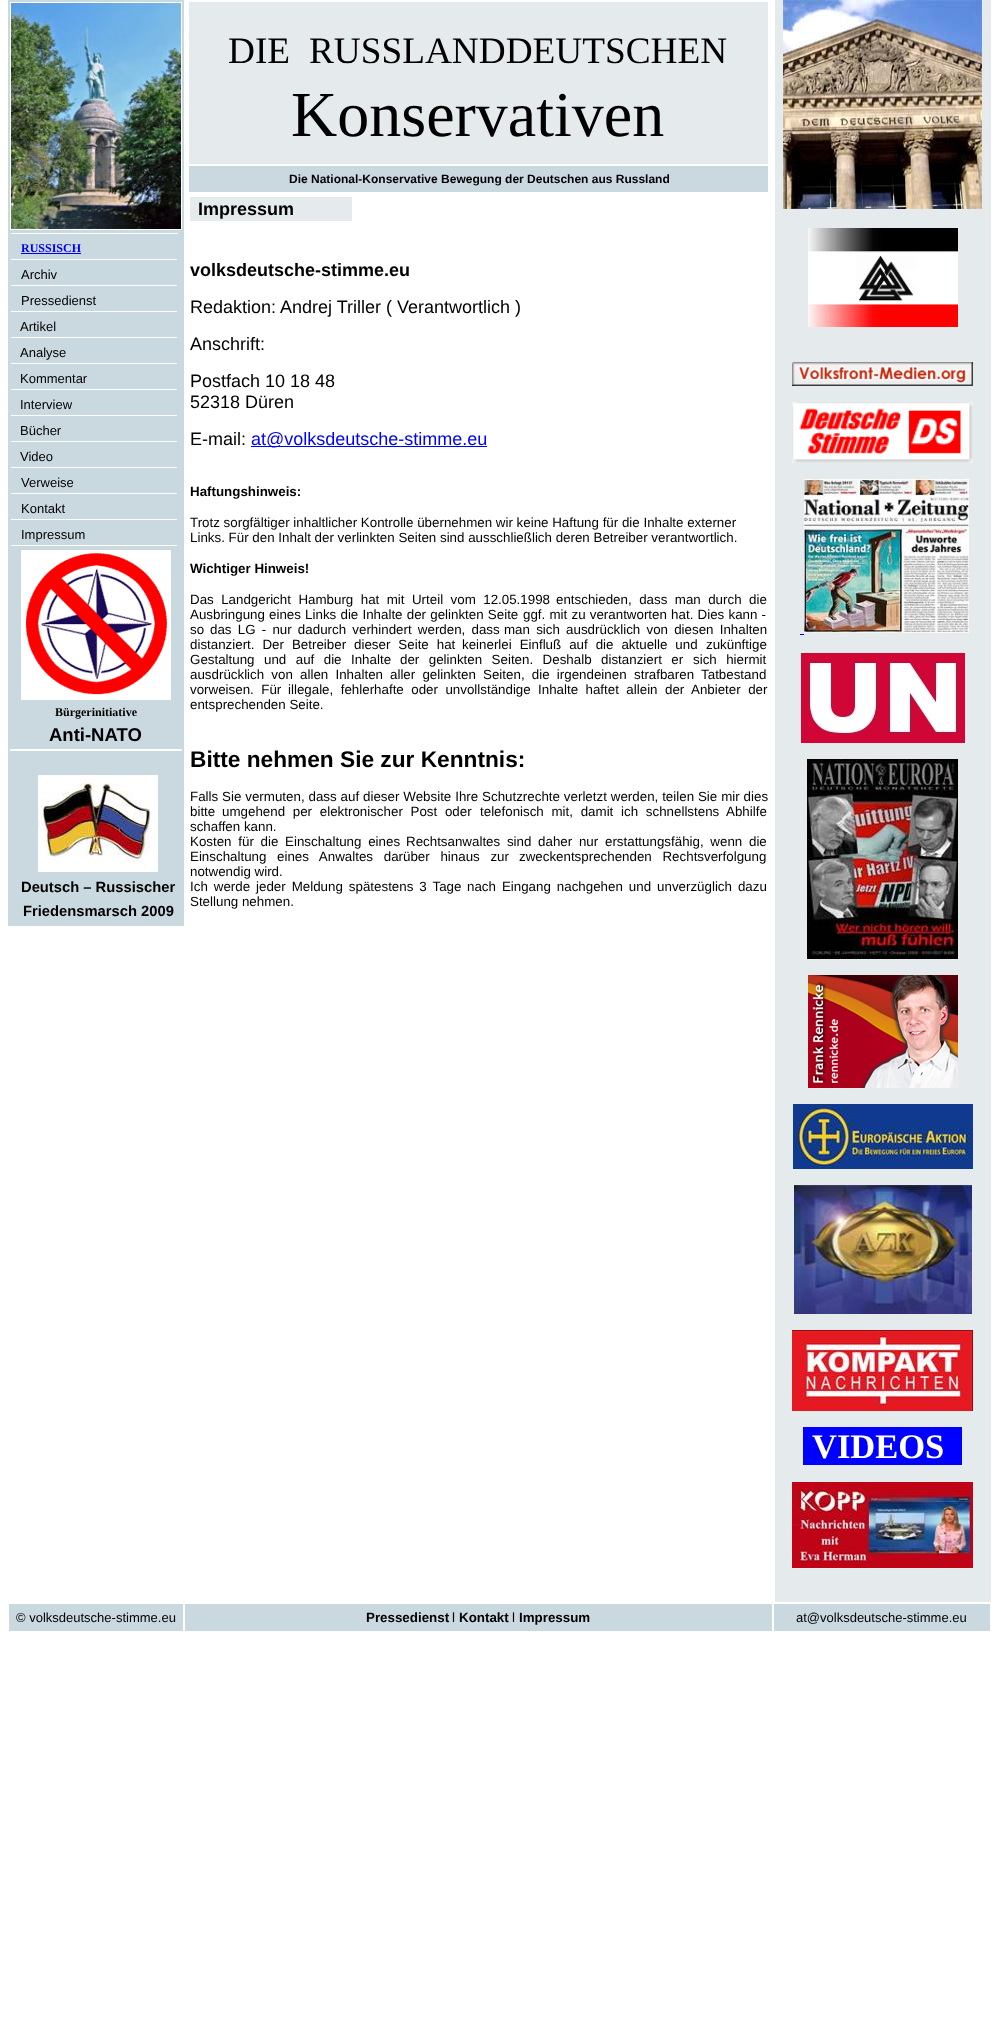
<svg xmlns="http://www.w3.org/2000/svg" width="998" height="2037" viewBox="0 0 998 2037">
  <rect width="100%" height="100%" fill="#fff"/>
  <path d="M8 0h176v926H8z" fill="#cad8df"/>
  <path d="M10 2h172v228H10z" fill="#fff"/>
  <image x="11" y="3" width="170" height="226" href="img/1.png"/>
  <path d="M11 233h167v1H11z" fill="#fff"/>
  <path d="M21 253h60v1H21z" fill="#00e"/>
  <path d="M11 259h166v1H11z" fill="#fff"/>
  <path d="M11 285h166v1H11z" fill="#fff"/>
  <path d="M11 311h166v1H11z" fill="#fff"/>
  <path d="M11 337h166v1H11z" fill="#fff"/>
  <path d="M11 363h166v1H11z" fill="#fff"/>
  <path d="M11 389h166v1H11z" fill="#fff"/>
  <path d="M11 415h166v1H11z" fill="#fff"/>
  <path d="M11 441h166v1H11z" fill="#fff"/>
  <path d="M11 467h166v1H11z" fill="#fff"/>
  <path d="M11 493h166v1H11z" fill="#fff"/>
  <path d="M11 519h166v1H11z" fill="#fff"/>
  <path d="M11 545h166v1H11z" fill="#fff"/>
  <image x="21" y="550" width="150" height="150" href="img/2.png"/>
  <path d="M10 749h172v2H10z" fill="#fff"/>
  <image x="38" y="775" width="120" height="97" href="img/3.png"/>
  <path d="M189 2h579v162H189z" fill="#e5eaed"/>
  <path d="M189 166h579v26H189z" fill="#cad8df"/>
  <path d="M190 197h162v24H190z" fill="#e5eaed"/>
  <path d="M251 446h236v1H251z" fill="#00f"/>
  <path d="M775 0h8v1602H775z" fill="#e5eaed"/>
  <path d="M982 0h9v209H982z" fill="#e5eaed"/>
  <image x="783" y="0" width="199" height="209" href="img/4.png"/>
  <path d="M783 209h208v1393H783z" fill="#e5eaed"/>
  <image x="808" y="228" width="150" height="99" href="img/5.png"/>
  <image x="792" y="362" width="181" height="24" href="img/6.png"/>
  <image x="792" y="402" width="181" height="61" href="img/7.png"/>
  <image x="804" y="479" width="165" height="154" href="img/8.png"/>
  <path d="M800 634h4v1H800z" fill="#00e"/>
  <image x="801" y="653" width="164" height="90" href="img/9.png"/>
  <image x="807" y="759" width="151" height="200" href="img/10.png"/>
  <image x="808" y="975" width="150" height="113" href="img/11.png"/>
  <image x="793" y="1104" width="180" height="65" href="img/12.png"/>
  <image x="794" y="1185" width="178" height="129" href="img/13.png"/>
  <image x="792" y="1330" width="181" height="81" href="img/14.png"/>
  <path d="M803 1427h159v38H803z" fill="#00f"/>
  <image x="792" y="1482" width="181" height="86" href="img/15.png"/>
  <path d="M9 1604h174v27H9z" fill="#cad8df"/>
  <path d="M185 1604h587v27H185z" fill="#cad8df"/>
  <path d="M774 1604h216v27H774z" fill="#cad8df"/>
  <text x="21" y="252" font-family="Liberation Serif" font-size="12" font-weight="bold" fill="#00e">RUSSISCH</text>
  <g font-family="Liberation Sans" font-size="13" fill="#000">
    <text x="21" y="279">Archiv</text>
    <text x="21" y="305">Pressedienst</text>
    <text x="20" y="331">Artikel</text>
    <text x="20" y="357">Analyse</text>
    <text x="20" y="383">Kommentar</text>
    <text x="20" y="409">Interview</text>
    <text x="20" y="435">Bücher</text>
    <text x="20" y="461">Video</text>
    <text x="21" y="487">Verweise</text>
    <text x="21" y="513">Kontakt</text>
    <text x="21" y="539">Impressum</text>
  </g>
  <text x="55" y="716" font-family="Liberation Serif" font-size="12" font-weight="bold" fill="#000">Bürgerinitiative</text>
  <text x="49" y="741" font-family="Liberation Sans" font-size="18.5" font-weight="bold" fill="#000">Anti-NATO</text>
  <g font-family="Liberation Sans" font-size="14.75" font-weight="bold" fill="#000">
    <text x="21" y="892">Deutsch – Russischer</text>
    <text x="23" y="916">Friedensmarsch 2009</text>
  </g>
  <g font-family="Liberation Serif" font-size="37.25" fill="#000">
    <text x="228" y="63">DIE</text>
    <text x="309" y="63">RUSSLANDDEUTSCHEN</text>
  </g>
  <text x="291" y="136" font-family="Liberation Serif" font-size="64" fill="#000">Konservativen</text>
  <text x="289" y="183" font-family="Liberation Sans" font-size="12" font-weight="bold" fill="#000">Die National-Konservative Bewegung der Deutschen aus Russland</text>
  <g font-family="Liberation Sans" font-size="18" font-weight="bold" fill="#000">
    <text x="198" y="215">Impressum</text>
    <text x="190" y="276">volksdeutsche-stimme.eu</text>
  </g>
  <g font-family="Liberation Sans" font-size="18" fill="#000">
    <text x="190" y="313">Redaktion:</text>
    <text x="280" y="313">Andrej Triller ( Verantwortlich )</text>
    <text x="190" y="350">Аnschrift:</text>
    <text x="190" y="387">Postfach 10 18 48</text>
    <text x="190" y="408">52318 Düren</text>
    <text x="190" y="445">E-mail:</text>
  </g>
  <text x="251" y="445" font-family="Liberation Sans" font-size="18" fill="#00f">at@volksdeutsche-stimme.eu</text>
  <text x="190" y="496" font-family="Liberation Sans" font-size="13.35" font-weight="bold" fill="#000">Haftungshinweis:</text>
  <g font-family="Liberation Sans" font-size="13.35" fill="#000">
    <text x="190" y="527">Trotz sorgfältiger inhaltlicher Kontrolle übernehmen wir keine Haftung für die Inhalte externer</text>
    <text x="190" y="542">Links. Für den Inhalt der verlinkten Seiten sind ausschließlich deren Betreiber verantwortlich.</text>
  </g>
  <text x="190" y="573" font-family="Liberation Sans" font-size="13.35" font-weight="bold" fill="#000">Wichtiger Hinweis!</text>
  <g font-family="Liberation Sans" font-size="13.35" fill="#000">
    <text x="190" y="604" word-spacing="3.75">Das Landgericht Hamburg hat mit Urteil vom 12.05.1998</text>
    <text x="556" y="604" word-spacing="3.75">entschieden, dass man durch die</text>
    <text x="190" y="619">Ausbringung</text>
    <text x="269" y="619" word-spacing="0.5">eines Links die Inhalte der gelinkten Seite</text>
    <text x="523" y="619" word-spacing="0.5">ggf. mit zu verantworten hat. Dies kann -</text>
    <text x="190" y="634">so</text>
    <text x="210" y="634" word-spacing="2.5">das LG - nur dadurch verhindert werden, dass</text>
    <text x="504" y="634" word-spacing="2.5">man sich ausdrücklich von diesen Inhalten</text>
    <text x="190" y="649" word-spacing="4.25">distanziert. Der Betreiber dieser Seite hat</text>
    <text x="462" y="649" word-spacing="4.25">keinerlei Einfluß auf die aktuelle und</text>
    <text x="706" y="649">zukünftige</text>
    <text x="190" y="664" word-spacing="5.75">Gestaltung und auf die Inhalte</text>
    <text x="400" y="664" word-spacing="5.75">der gelinkten Seiten. Deshalb distanziert er</text>
    <text x="693" y="664" word-spacing="5.75">sich hiermit</text>
    <text x="190" y="679" word-spacing="3.5">ausdrücklich von allen Inhalten</text>
    <text x="390" y="679" word-spacing="3.5">aller gelinkten Seiten, die irgendeinen</text>
    <text x="634" y="679" word-spacing="3.5">strafbaren Tatbestand</text>
    <text x="190" y="694" word-spacing="3.75">vorweisen. Für</text>
    <text x="288" y="694" word-spacing="3.75">illegale, fehlerhafte oder unvollständige</text>
    <text x="538" y="694" word-spacing="3.75">Inhalte haftet allein der Anbieter der</text>
    <text x="190" y="709">entsprechenden Seite.</text>
  </g>
  <text x="190" y="767" font-family="Liberation Sans" font-size="22.7" font-weight="bold" fill="#000">Bitte nehmen Sie zur Kenntnis:</text>
  <g font-family="Liberation Sans" font-size="13.35" fill="#000">
    <text x="190" y="801" word-spacing="0.2">Falls Sie vermuten, dass auf dieser Website Ihre Schutzrechte verletzt werden, teilen Sie mir dies</text>
    <text x="190" y="816">bitte</text>
    <text x="222" y="816" word-spacing="4">umgehend per elektronischer Post oder</text>
    <text x="480" y="816" word-spacing="4">telefonisch mit, damit ich schnellstens</text>
    <text x="726" y="816">Abhilfe</text>
    <text x="190" y="831">schaffen kann.</text>
    <text x="190" y="846" word-spacing="3">Kosten für die Einschaltung eines</text>
    <text x="406" y="846" word-spacing="3">Rechtsanwaltes sind daher nur</text>
    <text x="605" y="846" word-spacing="3">erstattungsfähig, wenn die</text>
    <text x="190" y="861">Einschaltung</text>
    <text x="277" y="861" word-spacing="7">eines Anwaltes darüber hinaus zur</text>
    <text x="519" y="861" word-spacing="7">zweckentsprechenden Rechtsverfolgung</text>
    <text x="190" y="876">notwendig wird.</text>
    <text x="190" y="891" word-spacing="2.25">Ich werde jeder Meldung spätestens 3 Tage</text>
    <text x="467" y="891" word-spacing="2.25">nach Eingang nachgehen und unverzüglich dazu</text>
    <text x="190" y="906">Stellung nehmen.</text>
  </g>
  <text x="812" y="1458" font-family="Liberation Serif" font-size="34.5" font-weight="bold" fill="#fff">VIDEOS</text>
  <text x="16" y="1622" font-family="Liberation Sans" font-size="13" fill="#000">© volksdeutsche-stimme.eu</text>
  <text x="366" y="1622" font-family="Liberation Sans" font-size="13.35" font-weight="bold" fill="#000">Pressedienst</text>
  <text x="452" y="1622" font-family="Liberation Sans" font-size="13.35" fill="#000">l</text>
  <text x="459" y="1622" font-family="Liberation Sans" font-size="13.35" font-weight="bold" fill="#000">Kontakt</text>
  <text x="512" y="1622" font-family="Liberation Sans" font-size="13.35" fill="#000">l</text>
  <text x="519" y="1622" font-family="Liberation Sans" font-size="13.35" font-weight="bold" fill="#000">Impressum</text>
  <text x="796" y="1622" font-family="Liberation Sans" font-size="13" fill="#000">at@volksdeutsche-stimme.eu</text>
</svg>
